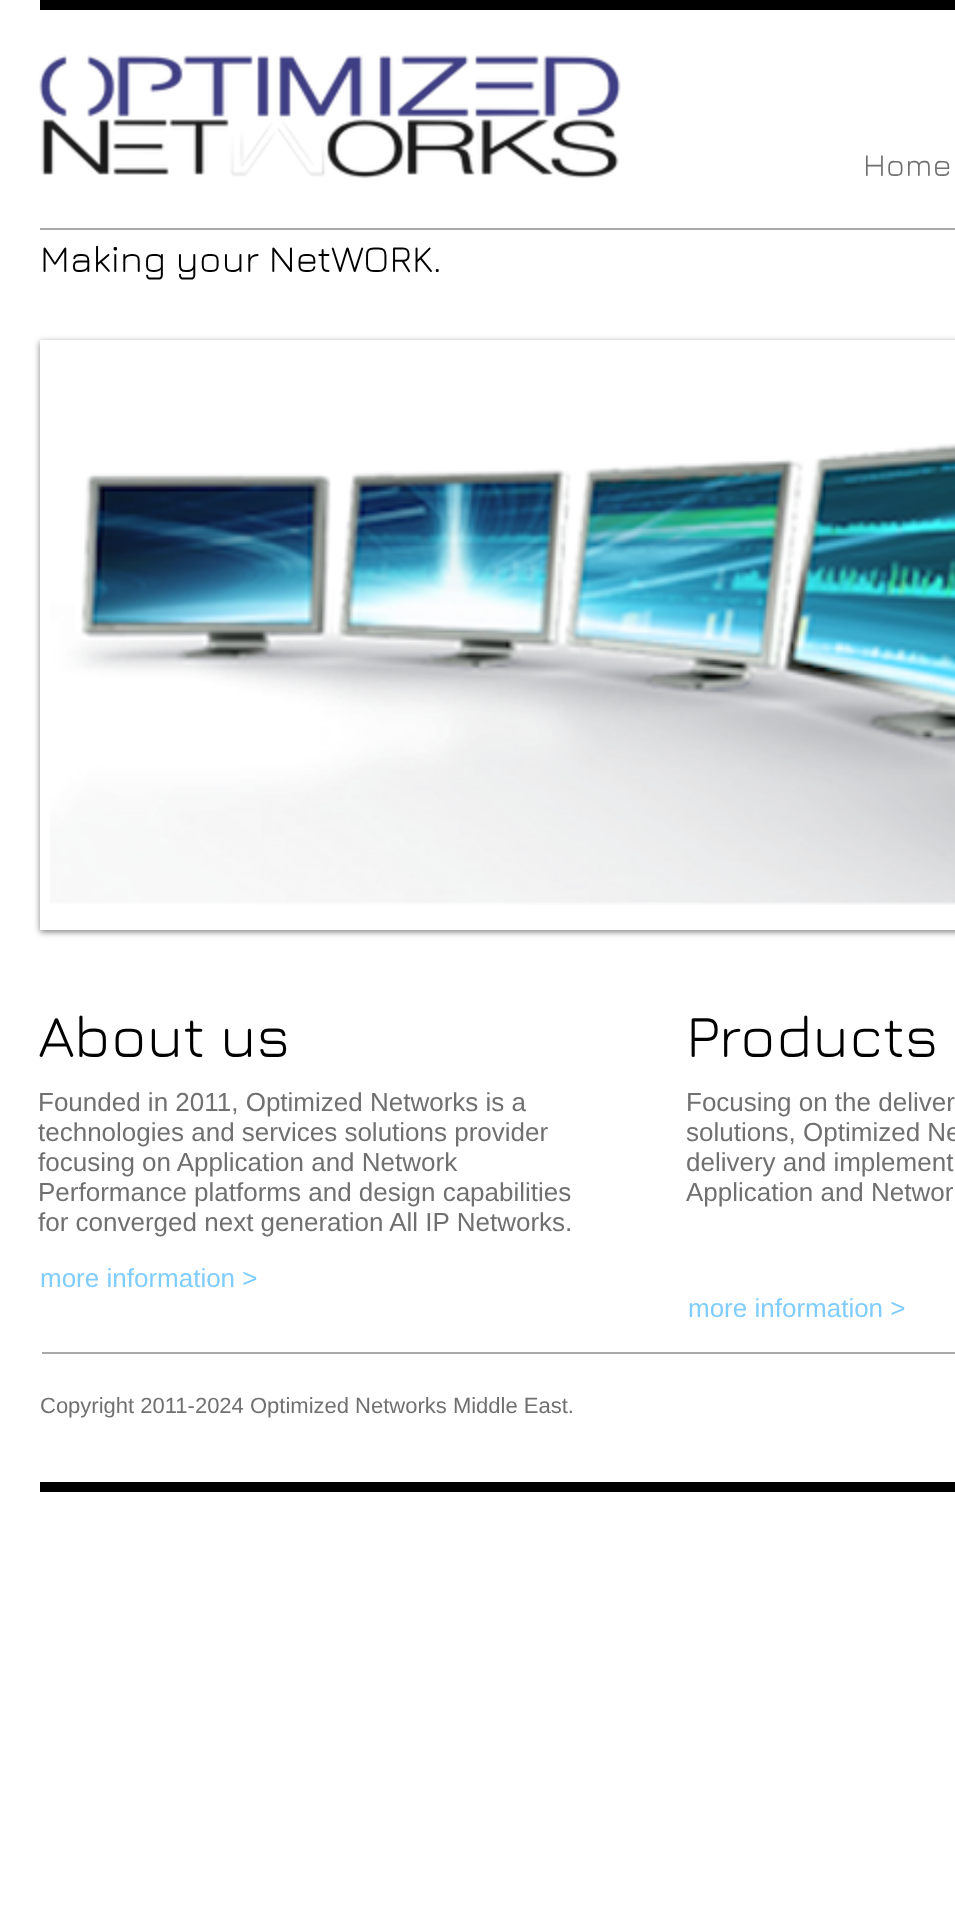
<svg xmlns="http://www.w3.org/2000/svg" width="955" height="1923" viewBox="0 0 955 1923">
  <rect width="100%" height="100%" fill="#fff"/>
  <path d="M40 0h915v10H40z" fill="#000"/>
  <image x="39" y="55" width="582" height="123" href="img/1.png"/>
  <path d="M40 228h915v2H40z" fill="#aaa8a8"/>
  <path d="M40 342h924v590H40z" fill="#00000080" filter="blur(3px)"/>
  <path d="M40 340h915v590H40z" fill="#fff"/>
  <image x="50" y="443" width="905" height="462" href="img/2.png"/>
  <path d="M42 1352h913v2H42z" fill="#aaa8a8"/>
  <path d="M40 1482h915v10H40z" fill="#000"/>
  <text x="863" y="176" font-family="Jura" font-size="32" fill="#717070">Home</text>
  <text x="40" y="272" font-family="Jura" font-size="38" fill="#000">Making your NetWORK.</text>
  <g font-family="Jura" font-size="60" fill="#000">
    <text x="38" y="1057">About us</text>
    <text x="686" y="1057">Products</text>
  </g>
  <g font-family="Liberation Sans" font-size="26" fill="#717070">
    <text x="38" y="1111">Founded in 2011, Optimized Networks is a</text>
    <text x="38" y="1141">technologies and services solutions provider</text>
    <text x="38" y="1171">focusing on Application and Network</text>
    <text x="38" y="1201">Performance platforms and design capabilities</text>
    <text x="38" y="1231">for converged next generation All IP Networks.</text>
    <text x="686" y="1111">Focusing on the deliver</text>
    <text x="686" y="1141">solutions, Optimized Ne</text>
    <text x="686" y="1171">delivery and implement</text>
    <text x="686" y="1201">Application and Networ</text>
  </g>
  <g font-family="Liberation Sans" font-size="26" fill="#7fccff">
    <text x="40" y="1287">more information &gt;</text>
    <text x="688" y="1317">more information &gt;</text>
  </g>
  <text x="40" y="1413" font-family="Liberation Sans" font-size="22" fill="#717070">Copyright 2011-2024 Optimized Networks Middle East.</text>
</svg>
